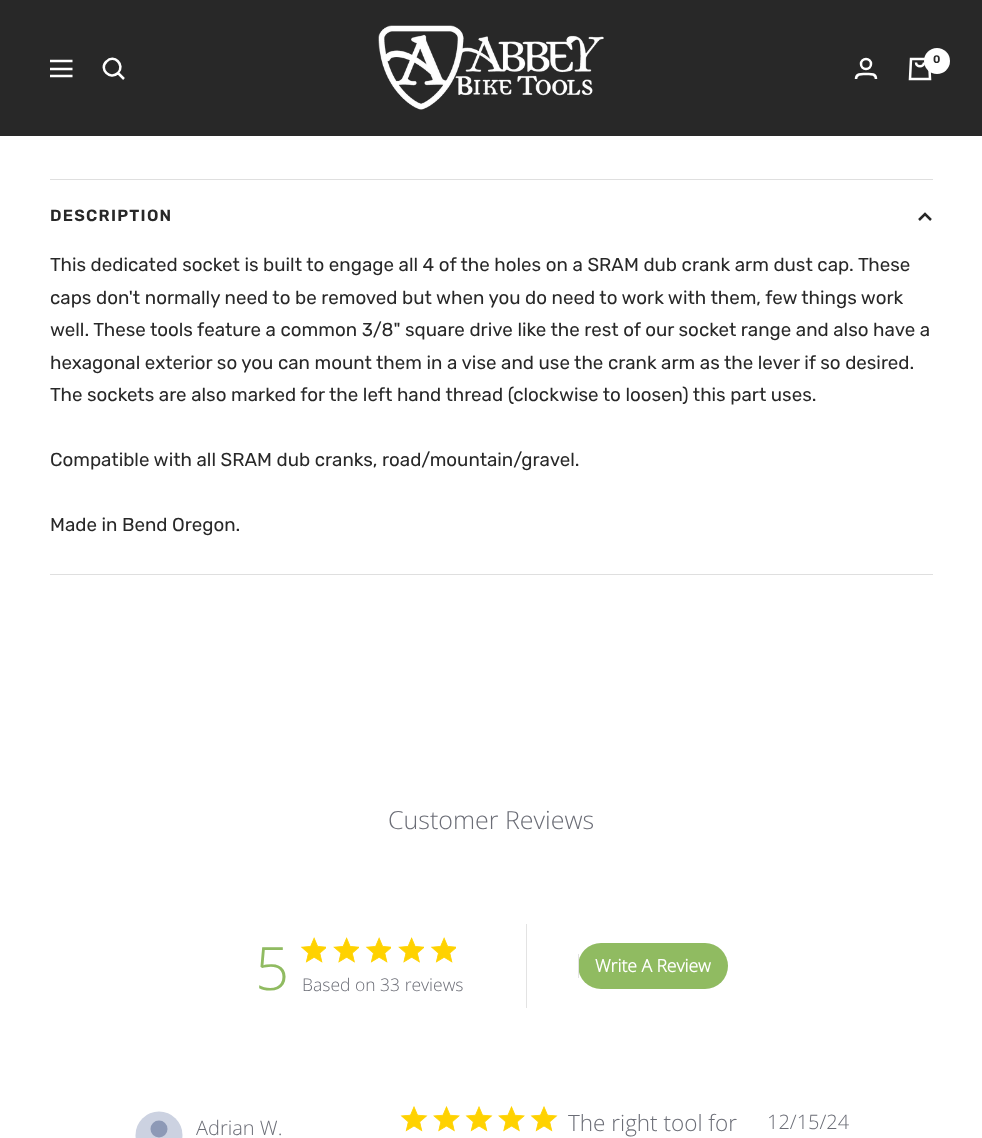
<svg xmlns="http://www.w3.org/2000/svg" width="982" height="1138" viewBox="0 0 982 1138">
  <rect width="100%" height="100%" fill="#fff"/>
  <path d="M0 0h982v136H0z" fill="#282828"/>
  <path d="M50 61H72.5M50 76H72.5ZM50 69H72.5Z" fill="none" stroke="#fff" stroke-width="2.5"/>
  <path d="M118 73C125.5 65 114 53.5 106.5 61.5C98.5 69 110 80.5 118 73ZM118 73L124 79" fill="none" stroke="#fff" stroke-width="2.5"/>
  <image x="378" y="25" width="226" height="85" href="img/1.png"/>
  <circle cx="866" cy="64" r="5" fill="none" stroke="#fff" stroke-width="2.5"/>
  <path d="M856 79C856 73 862.5 74 866 74C870 74 876 73 876 79" fill="none" stroke="#fff" stroke-width="2.5"/>
  <path d="M911 59H929L930 79H910ZM916 62.5C916 67.5 924 67.5 924 62.5" fill="none" stroke="#fff" stroke-width="2.5"/>
  <circle cx="937" cy="61" r="13" fill="#fff"/>
  <path d="M50 179h883v1H50z" fill="#dfdfdf"/>
  <path d="M50 574h883v1H50z" fill="#dfdfdf"/>
  <path d="M931 220L925 214L919 220" fill="none" stroke="#282828" stroke-width="2.5"/>
  <image x="300" y="937" width="26" height="26" href="img/2.png"/>
  <image x="333" y="937" width="26" height="26" href="img/3.png"/>
  <image x="365" y="937" width="26" height="26" href="img/2.png"/>
  <image x="398" y="937" width="26" height="26" href="img/3.png"/>
  <image x="430" y="937" width="26" height="26" href="img/2.png"/>
  <path d="M526 924h1v84H526z" fill="#e3e3e3"/>
  <rect x="578" y="943" width="150" height="46" rx="23" fill="#90bb61"/>
  <path d="M578 954h1v24H578z" fill="#e3e3e3"/>
  <circle cx="159" cy="1135" r="23.5" fill="#ccd2e1"/>
  <circle cx="159" cy="1129" r="8.5" fill="#8d99b6"/>
  <image x="400" y="1106" width="28" height="26" href="img/4.png"/>
  <image x="433" y="1106" width="27" height="26" href="img/5.png"/>
  <image x="465" y="1106" width="28" height="26" href="img/4.png"/>
  <image x="498" y="1106" width="27" height="26" href="img/5.png"/>
  <image x="530" y="1106" width="28" height="26" href="img/4.png"/>
  <text x="933" y="63" font-family="Rubik" font-size="11" font-weight="600" fill="#282828">0</text>
  <text x="50" y="221" font-family="Rubik" font-size="16.25" font-weight="600" letter-spacing="1.25" fill="#282828">DESCRIPTION</text>
  <g font-family="Rubik" font-size="18.75" fill="#282828">
    <text x="50" y="271">This dedicated socket is built to engage all 4 of the holes on a SRAM dub crank arm dust cap. These</text>
    <text x="50" y="304">caps don't normally need to be removed but when you do need to work with them, few things work</text>
    <text x="50" y="336">well. These tools feature a common 3/8" square drive like the rest of our socket range and also have a</text>
    <text x="50" y="369">hexagonal exterior so you can mount them in a vise and use the crank arm as the lever if so desired.</text>
    <text x="50" y="401">The sockets are also marked for the left hand thread (clockwise to loosen) this part uses.</text>
    <text x="50" y="466">Compatible with all SRAM dub cranks, road/mountain/gravel.</text>
    <text x="50" y="531">Made in Bend Oregon.</text>
  </g>
  <text x="388" y="829" font-family="Open Sans" font-size="25" font-weight="300" fill="#6b6d76">Customer Reviews</text>
  <text x="255" y="990" font-family="Open Sans" font-size="60" font-weight="300" fill="#90bb61">5</text>
  <text x="302" y="991" font-family="Open Sans" font-size="17.5" font-weight="300" fill="#6b6d76">Based on 33 reviews</text>
  <text x="595" y="972" font-family="Open Sans" font-size="17.5" font-weight="bold" fill="#fff">Write A Review</text>
  <text x="196" y="1135" font-family="Open Sans" font-size="20" font-weight="300" fill="#6b6d76">Adrian W.</text>
  <text x="568" y="1131" font-family="Open Sans" font-size="22.5" font-weight="300" fill="#6b6d76">The right tool for</text>
  <text x="767" y="1129" font-family="Open Sans" font-size="20" font-weight="300" fill="#6b6d76">12/15/24</text>
</svg>
